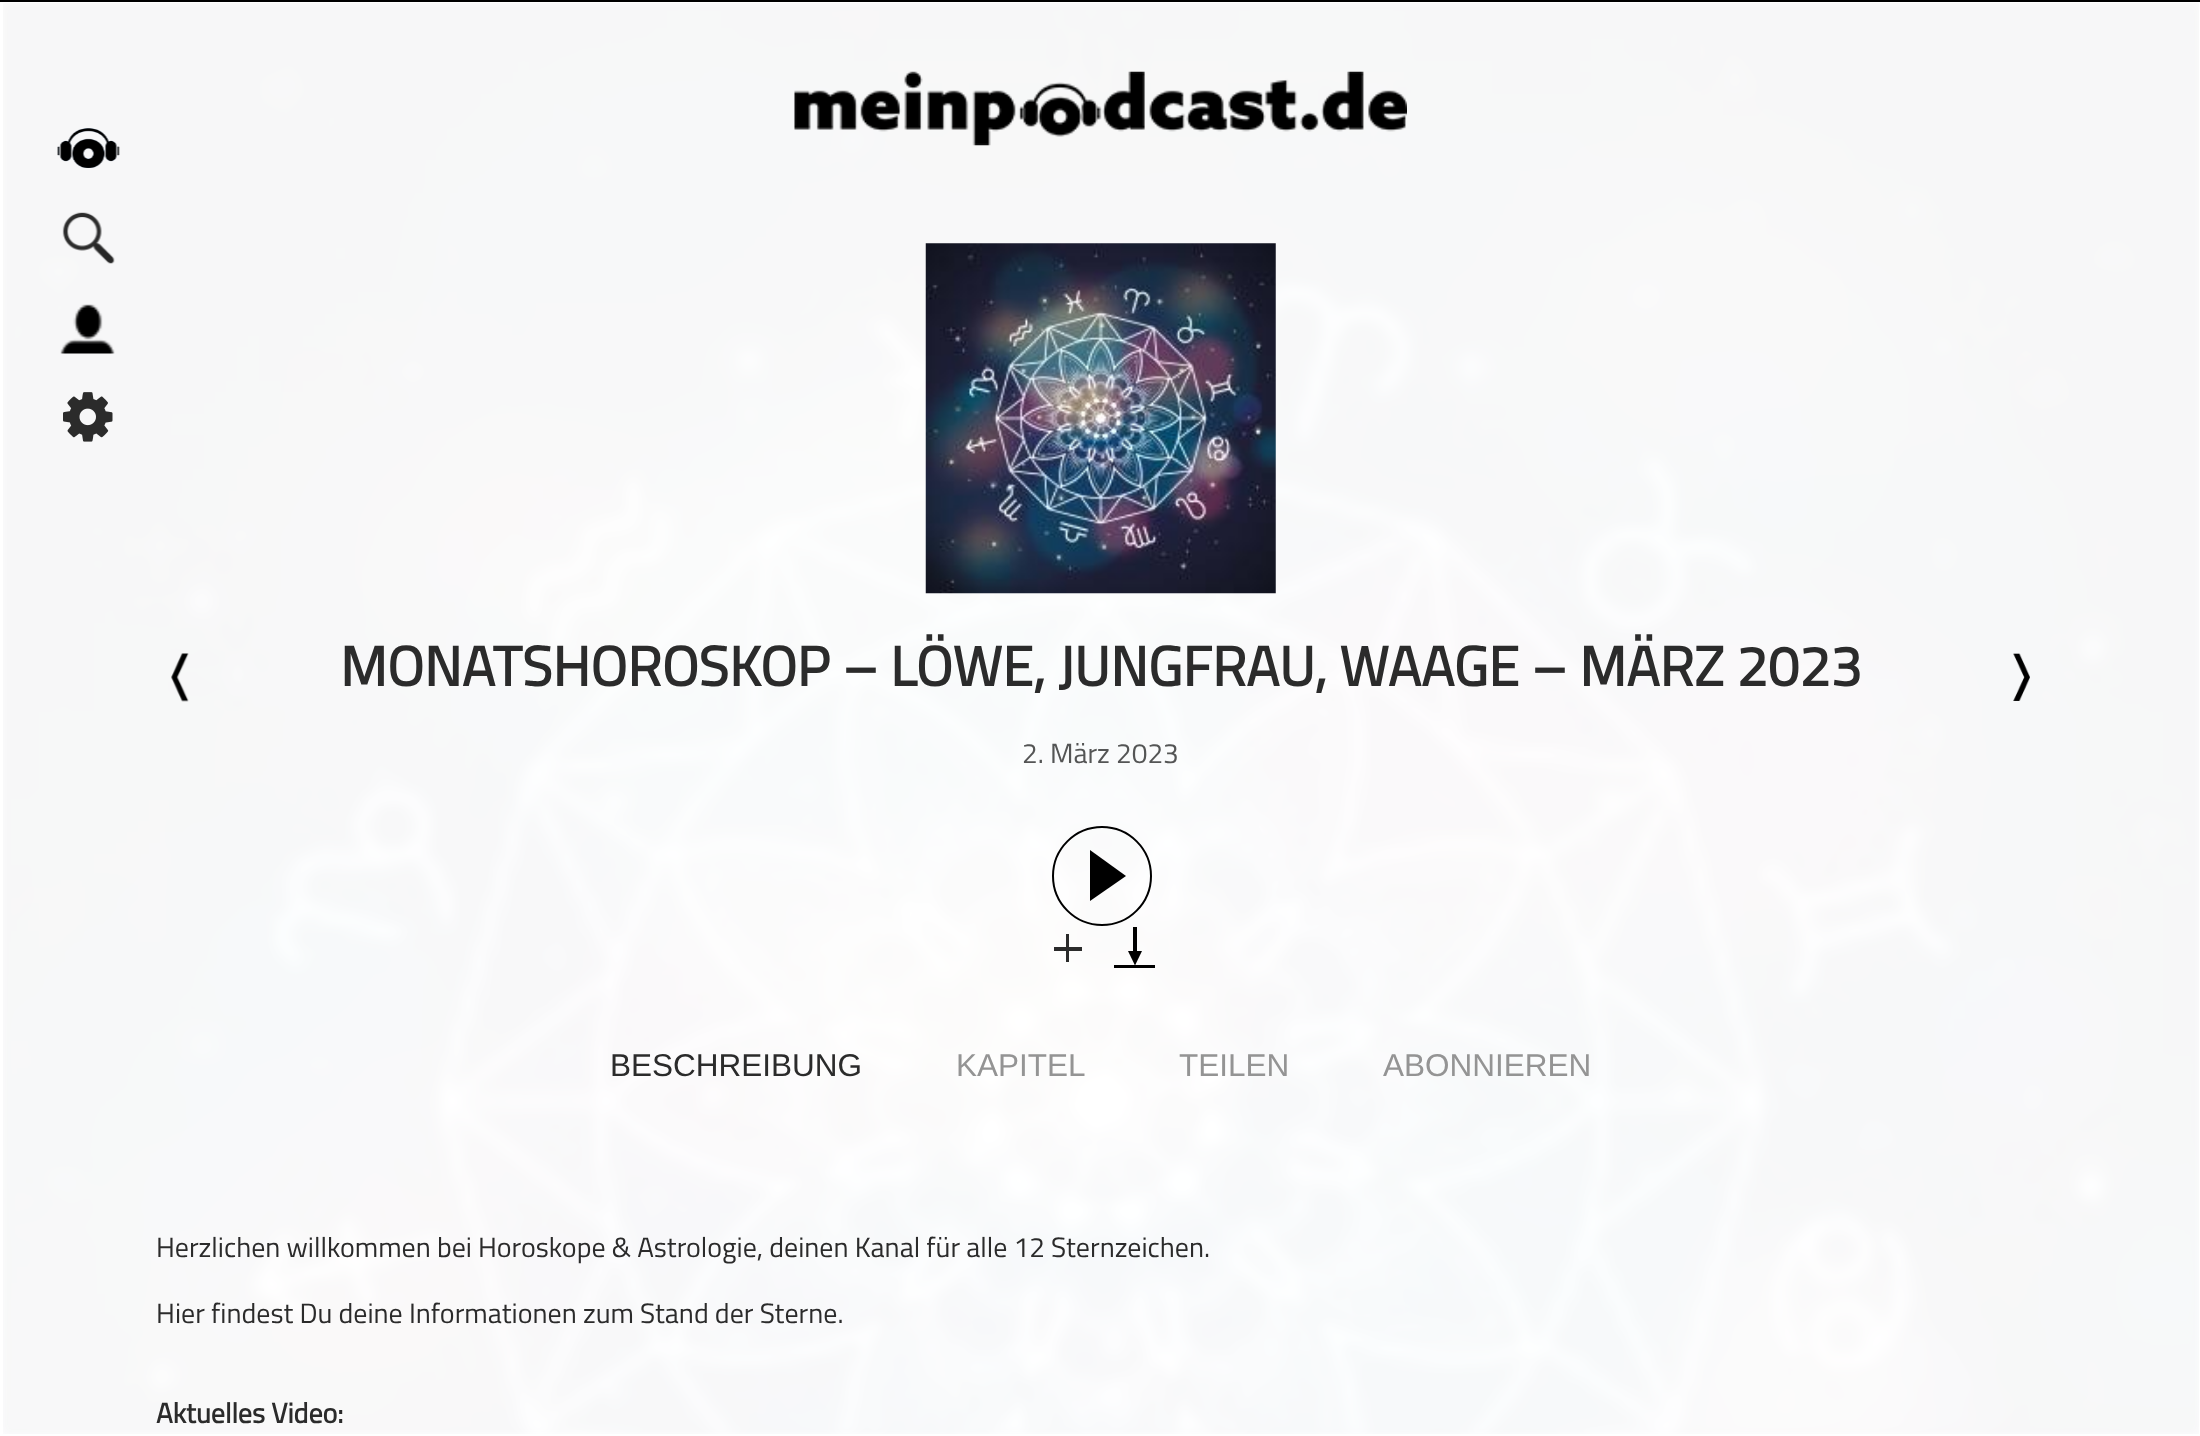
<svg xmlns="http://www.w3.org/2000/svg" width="2200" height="1436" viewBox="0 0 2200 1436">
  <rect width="100%" height="100%" fill="#fff"/>
  <path d="M0 0h2200v2H0z" fill="#000"/>
  <image x="3" y="3" width="2196" height="1431" href="img/6.png"/>
  <image x="794" y="71" width="613" height="75" href="img/1.png"/>
  <image x="57" y="128" width="63" height="40" href="img/2.png"/>
  <image x="62" y="212" width="53" height="52" href="img/3.png"/>
  <image x="60" y="304" width="55" height="50" href="img/4.png"/>
  <image x="63" y="392" width="50" height="50" href="img/5.png"/>
  <image x="925" y="243" width="351" height="351" href="img/7.png"/>
  <image x="171" y="653" width="18" height="49" href="img/8.png"/>
  <image x="2013" y="653" width="17" height="48" href="img/9.png"/>
  <path d="M1090 850L1126 876L1090 901Z" fill="#000" fill-rule="evenodd"/>
  <circle cx="1102" cy="876" r="49" fill="none" stroke="#000" stroke-width="2"/>
  <path d="M1054 947h28v4H1054z" fill="#2b2b2b"/>
  <path d="M1066 934h3v28H1066z" fill="#2b2b2b"/>
  <path d="M1128 951H1142L1135 965.5Z" fill="#000" fill-rule="evenodd"/>
  <path d="M1133 927h4v25H1133z" fill="#000"/>
  <path d="M1114 965h41v3H1114z" fill="#000"/>
  <text x="340" y="686" font-family="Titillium" font-size="56" font-weight="bold" fill="#2b2b2b">MONATSHOROSKOP – LÖWE, JUNGFRAU, WAAGE – MÄRZ 2023</text>
  <text x="1022" y="763" font-family="Titillium" font-size="28" fill="#545555">2. März 2023</text>
  <text x="610" y="1076" font-family="Liberation Sans" font-size="31.5" fill="#2b2b2b">BESCHREIBUNG</text>
  <g font-family="Liberation Sans" font-size="31.5" fill="#949494">
    <text x="956" y="1076">KAPITEL</text>
    <text x="1179" y="1076">TEILEN</text>
    <text x="1383" y="1076">ABONNIEREN</text>
  </g>
  <g font-family="Titillium" font-size="28" fill="#2b2b2b">
    <text x="156" y="1257">Herzlichen willkommen bei Horoskope &amp; Astrologie, deinen Kanal für alle 12 Sternzeichen.</text>
    <text x="156" y="1323">Hier findest Du deine Informationen zum Stand der Sterne.</text>
  </g>
  <text x="156" y="1423" font-family="Titillium" font-size="28" font-weight="bold" fill="#2b2b2b">Aktuelles Video:</text>
</svg>
